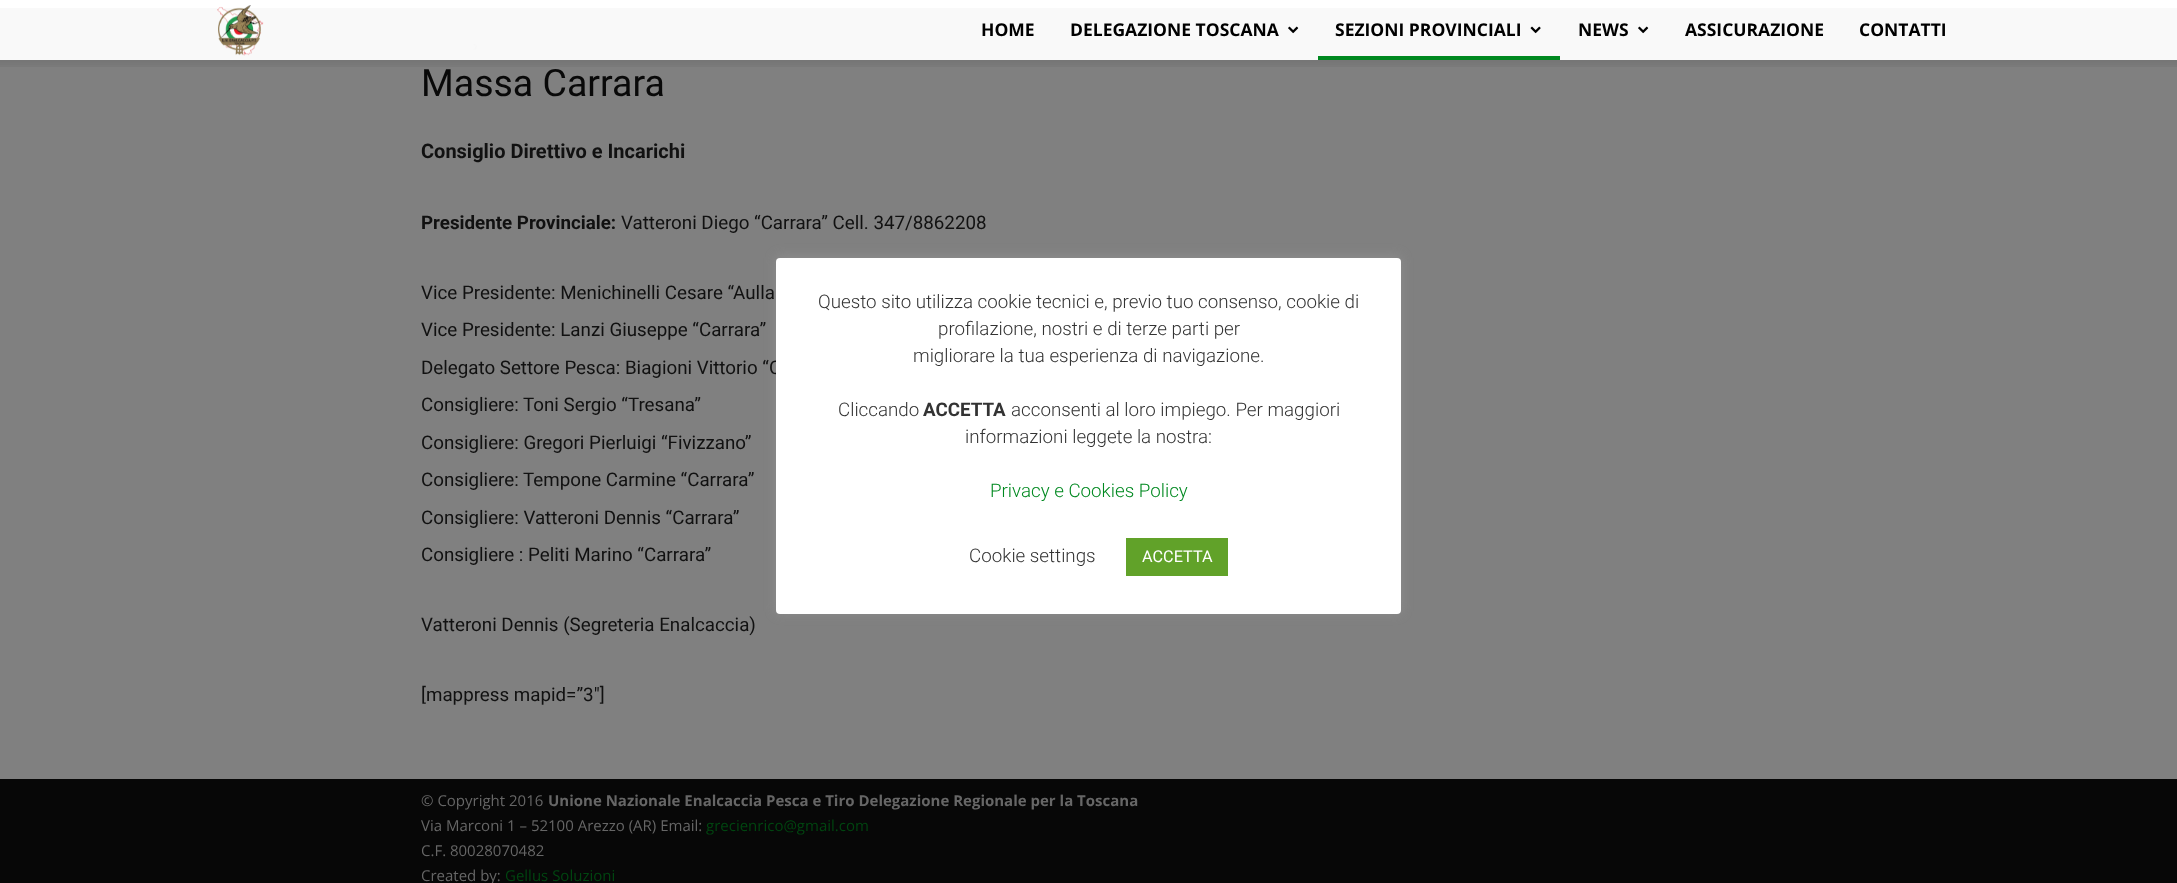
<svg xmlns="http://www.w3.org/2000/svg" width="2177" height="883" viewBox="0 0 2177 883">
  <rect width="100%" height="100%" fill="#808080"/>
  <path d="M0 8h2177v52H0z" fill="#f9f9f9"/>
  <path d="M0 0h2177v8H0z" fill="#fff"/>
  <image x="217" y="5" width="47" height="51" href="img/1.png"/>
  <image x="1288" y="26" width="11" height="8" href="img/2.png"/>
  <image x="1530" y="26" width="11" height="8" href="img/3.png"/>
  <path d="M1318 56h242v4H1318z" fill="#008920"/>
  <image x="1638" y="26" width="11" height="8" href="img/2.png"/>
  <image x="0" y="60" width="2177" height="7" href="img/4.png"/>
  <image x="473" y="44" width="4" height="6" href="img/5.png"/>
  <path d="M0 779h2177v104H0z" fill="#070707"/>
  <rect x="776" y="256" width="625" height="357" rx="4" fill="#acabab4d" filter="blur(6px)"/>
  <g font-family="Open Sans" font-size="17.5" font-weight="bold" fill="#000">
    <text x="981" y="36">HOME</text>
    <text x="1070" y="36">DELEGAZIONE TOSCANA</text>
    <text x="1335" y="36">SEZIONI PROVINCIALI</text>
    <text x="1578" y="36">NEWS</text>
    <text x="1685" y="36">ASSICURAZIONE</text>
    <text x="1859" y="36">CONTATTI</text>
  </g>
  <text x="421" y="96" font-family="Roboto" font-size="37.5" fill="#090909">Massa Carrara</text>
  <text x="421" y="158" font-family="Roboto" font-size="20" font-weight="bold" fill="#111">Consiglio Direttivo e Incarichi</text>
  <text x="421" y="229" font-family="Roboto" font-size="18.75" font-weight="bold" fill="#111">Presidente Provinciale:</text>
  <g font-family="Roboto" font-size="18.75" fill="#111">
    <text x="621" y="229">Vatteroni Diego “Carrara” Cell. 347/8862208</text>
    <text x="421" y="299">Vice Presidente: Menichinelli Cesare “Aulla</text>
    <text x="421" y="336">Vice Presidente: Lanzi Giuseppe “Carrara”</text>
    <text x="421" y="374">Delegato Settore Pesca: Biagioni Vittorio “C</text>
    <text x="421" y="411">Consigliere: Toni Sergio “Tresana”</text>
    <text x="421" y="449">Consigliere: Gregori Pierluigi “Fivizzano”</text>
    <text x="421" y="486">Consigliere: Tempone Carmine “Carrara”</text>
    <text x="421" y="524">Consigliere: Vatteroni Dennis “Carrara”</text>
    <text x="421" y="561">Consigliere : Peliti Marino “Carrara”</text>
    <text x="421" y="631">Vatteroni Dennis (Segreteria Enalcaccia)</text>
    <text x="421" y="701">[mappress mapid=”3″]</text>
  </g>
  <text x="421" y="806" font-family="Open Sans" font-size="15" fill="#666">© Copyright 2016</text>
  <text x="548" y="806" font-family="Open Sans" font-size="15" font-weight="bold" fill="#666">Unione Nazionale Enalcaccia Pesca e Tiro Delegazione Regionale per la Toscana</text>
  <text x="421" y="831" font-family="Open Sans" font-size="15" fill="#666">Via Marconi 1 – 52100 Arezzo (AR) Email:</text>
  <text x="706" y="831" font-family="Open Sans" font-size="15" fill="#004510">grecienrico@gmail.com</text>
  <g font-family="Open Sans" font-size="15" fill="#666">
    <text x="421" y="856">C.F. 80028070482</text>
    <text x="421" y="881">Created by:</text>
  </g>
  <text x="505" y="881" font-family="Open Sans" font-size="15" fill="#004510">Gellus Soluzioni</text>
  <rect x="776" y="258" width="625" height="356" rx="4" fill="#fff"/>
  <g font-family="Roboto" font-size="18.75" font-weight="300" fill="#333">
    <text x="818" y="308">Questo sito utilizza cookie tecnici e, previo tuo consenso, cookie di</text>
    <text x="938" y="335">profilazione, nostri e di terze parti per</text>
    <text x="913" y="362">migliorare la tua esperienza di navigazione.</text>
    <text x="838" y="416">Cliccando</text>
  </g>
  <text x="923" y="416" font-family="Roboto" font-size="18.75" font-weight="bold" fill="#333">ACCETTA</text>
  <g font-family="Roboto" font-size="18.75" font-weight="300" fill="#333">
    <text x="1011" y="416">acconsenti al loro impiego. Per maggiori</text>
    <text x="965" y="443">informazioni leggete la nostra:</text>
  </g>
  <text x="990" y="497" font-family="Roboto" font-size="18.75" font-weight="300" fill="#008920">Privacy e Cookies Policy</text>
  <text x="969" y="562" font-family="Roboto" font-size="18.75" font-weight="300" fill="#333">Cookie settings</text>
  <path d="M1126 538h102v38H1126z" fill="#61a229"/>
  <text x="1142" y="562" font-family="Roboto" font-size="16.25" fill="#fff">ACCETTA</text>
</svg>
